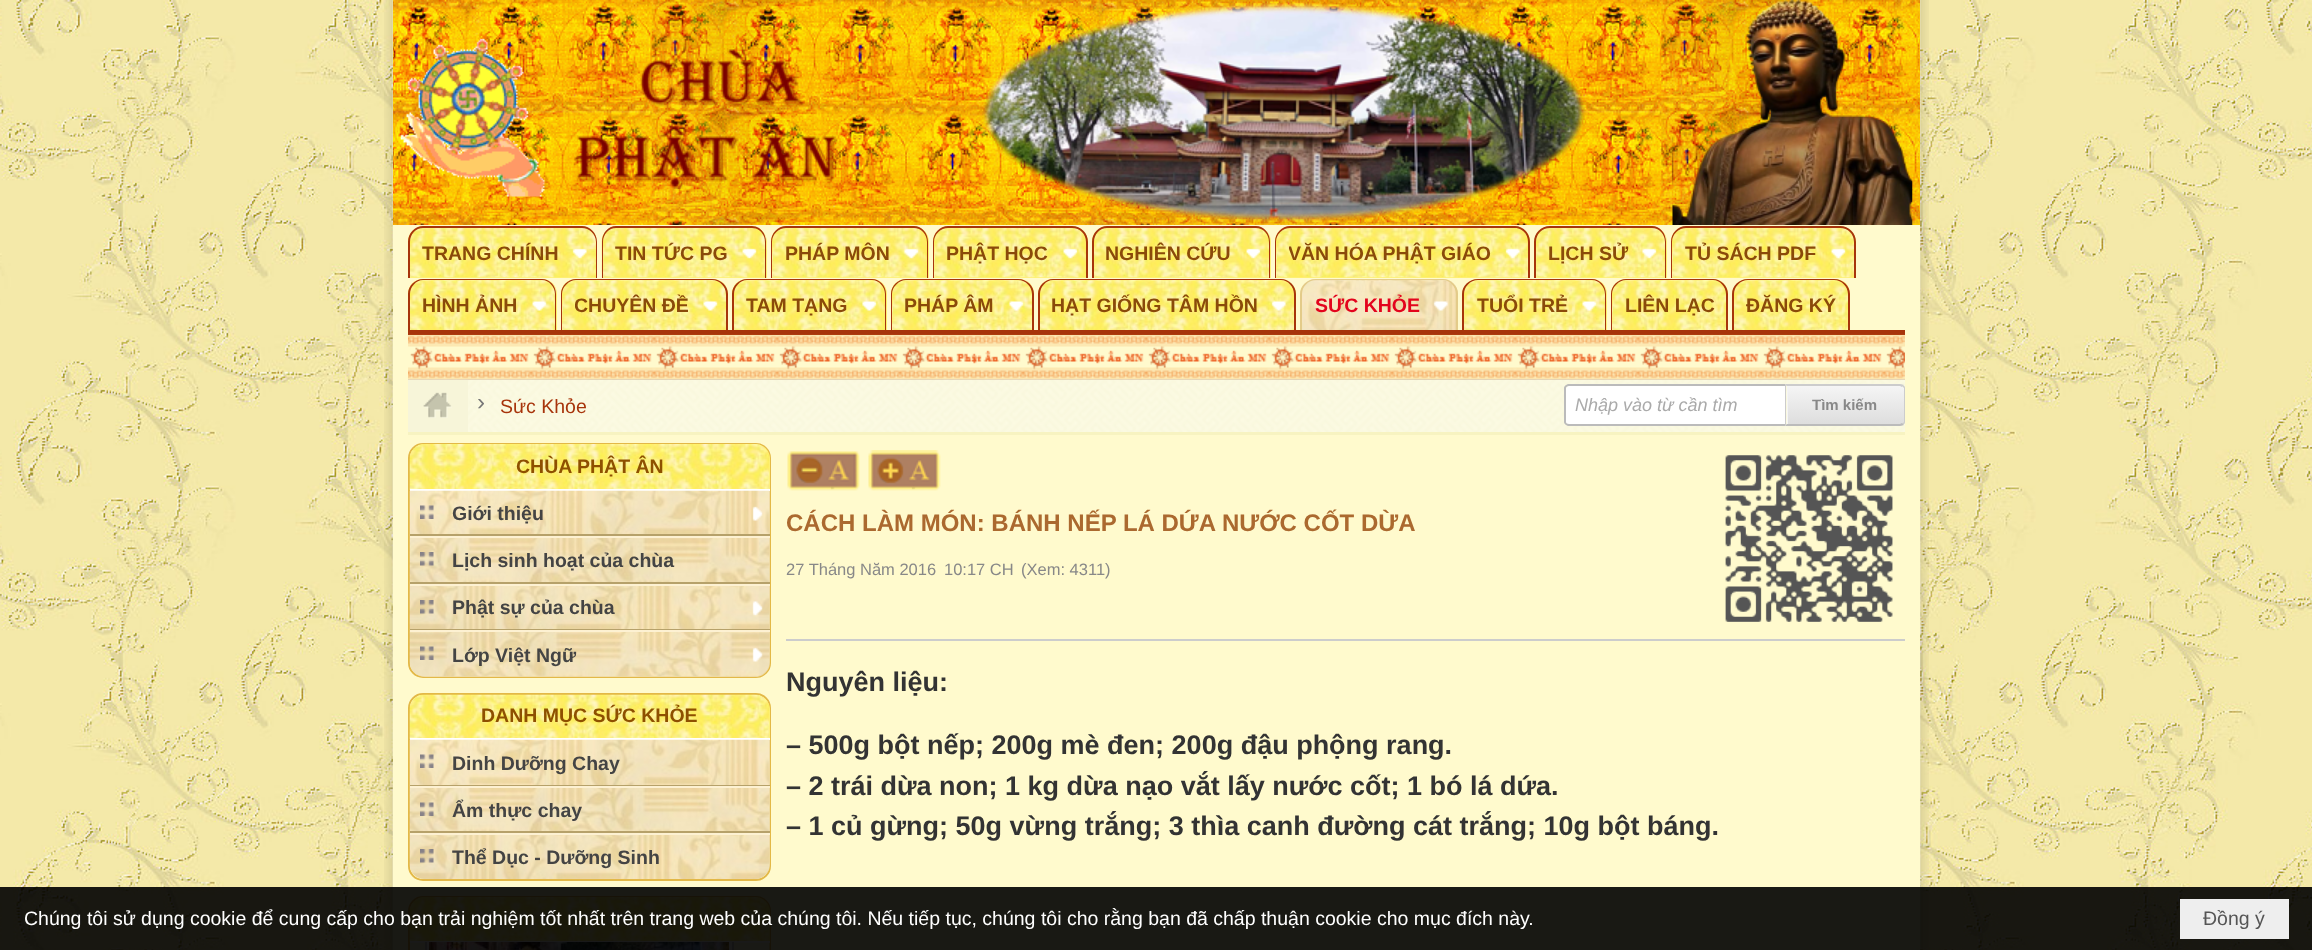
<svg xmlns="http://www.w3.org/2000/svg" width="2312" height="950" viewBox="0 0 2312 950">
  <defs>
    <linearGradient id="g1" gradientUnits="userSpaceOnUse" x1="1845" y1="386" x2="1845" y2="425"><stop offset="0" stop-color="#f5f5f5"/><stop offset="1" stop-color="#ddd"/></linearGradient>
    <clipPath id="clip1"><path d="M410 942h360v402H410z"/></clipPath>
    <clipPath id="clip2"><path d="M422 236h136v33H422z"/></clipPath>
    <clipPath id="clip3"><path d="M1289 236h202v33H1289z"/></clipPath>
    <clipPath id="clip4"><path d="M575 288h114v33H575z"/></clipPath>
    <clipPath id="clip5"><path d="M452 840h318v33H452z"/></clipPath>
  </defs>
  <rect width="100%" height="100%" fill="#fff"/>
  <image x="0" y="0" width="2312" height="950" href="img/1.png"/>
  <image x="384" y="0" width="1545" height="950" href="img/2.png"/>
  <path d="M393 225h1527v725H393z" fill="#fffacd"/>
  <image x="393" y="0" width="1527" height="225" href="img/3.png"/>
  <image x="400" y="38" width="145" height="159" href="img/4.png"/>
  <image x="574" y="49" width="264" height="140" href="img/5.png"/>
  <image x="982" y="3" width="604" height="219" href="img/6.png"/>
  <image x="1672" y="0" width="241" height="225" href="img/7.png"/>
  <path d="M408 330h1497v5H408z" fill="#a7340b"/>
  <path d="M423 227H582C590.5 227 597 233.5 597 242V278H408V242C408 233.5 414.5 227 423 227Z" fill="#fef076"/>
  <image x="408" y="226" width="189" height="52" href="img/8.png"/>
  <path d="M423 226H582C590 226 597 233 597 242V278H408V242C408 233 415 226 423 226ZM423 228H582C589 228 596 234 596 242V278H410V242C410 234 416 228 423 228Z" fill="#a7340b" fill-rule="evenodd"/>
  <image x="572" y="248" width="15" height="11" href="img/9.png"/>
  <path d="M617 227H752C760.5 227 767 233.5 767 242V278H602V242C602 233.5 608.5 227 617 227Z" fill="#fef076"/>
  <image x="601" y="226" width="166" height="52" href="img/10.png"/>
  <path d="M616 226H752C760 226 766 233 766 242V278H602V242C602 233 608 226 616 226ZM616 228H752C759 228 765 234 765 242V278H603V242C603 234 609 228 616 228Z" fill="#a7340b" fill-rule="evenodd"/>
  <image x="742" y="248" width="15" height="11" href="img/11.png"/>
  <path d="M786 227H914C922.5 227 929 233.5 929 242V278H771V242C771 233.5 777.5 227 786 227Z" fill="#fef076"/>
  <image x="771" y="226" width="158" height="52" href="img/12.png"/>
  <path d="M786 226H914C922 226 928 233 928 242V278H771V242C771 233 778 226 786 226ZM786 228H914C921 228 927 234 927 242V278H772V242C772 234 779 228 786 228Z" fill="#a7340b" fill-rule="evenodd"/>
  <image x="904" y="248" width="15" height="11" href="img/13.png"/>
  <path d="M948 227H1073C1081.5 227 1088 233.5 1088 242V278H933V242C933 233.5 939.5 227 948 227Z" fill="#fef076"/>
  <image x="933" y="226" width="155" height="52" href="img/14.png"/>
  <path d="M948 226H1072C1081 226 1088 233 1088 242V278H933V242C933 233 940 226 948 226ZM948 228H1072C1080 228 1086 234 1086 242V278H934V242C934 234 941 228 948 228Z" fill="#a7340b" fill-rule="evenodd"/>
  <image x="1063" y="248" width="15" height="11" href="img/15.png"/>
  <path d="M1107 227H1256C1264.5 227 1271 233.5 1271 242V278H1092V242C1092 233.5 1098.5 227 1107 227Z" fill="#fef076"/>
  <image x="1092" y="226" width="179" height="52" href="img/16.png"/>
  <path d="M1107 226H1256C1264 226 1270 233 1270 242V278H1092V242C1092 233 1099 226 1107 226ZM1107 228H1256C1263 228 1269 234 1269 242V278H1094V242C1094 234 1100 228 1107 228Z" fill="#a7340b" fill-rule="evenodd"/>
  <image x="1246" y="248" width="15" height="11" href="img/17.png"/>
  <path d="M1290 227H1515C1523.5 227 1530 233.5 1530 242V278H1275V242C1275 233.5 1281.5 227 1290 227Z" fill="#fef076"/>
  <image x="1275" y="226" width="255" height="52" href="img/18.png"/>
  <path d="M1290 226H1515C1523 226 1530 233 1530 242V278H1275V242C1275 233 1282 226 1290 226ZM1290 228H1515C1522 228 1528 234 1528 242V278H1276V242C1276 234 1283 228 1290 228Z" fill="#a7340b" fill-rule="evenodd"/>
  <image x="1505" y="248" width="15" height="11" href="img/19.png"/>
  <path d="M1550 227H1652C1660.5 227 1667 233.5 1667 242V278H1535V242C1535 233.5 1541.5 227 1550 227Z" fill="#fef076"/>
  <image x="1534" y="226" width="133" height="52" href="img/20.png"/>
  <path d="M1550 226H1652C1660 226 1666 233 1666 242V278H1534V242C1534 233 1541 226 1550 226ZM1550 228H1652C1659 228 1665 234 1665 242V278H1536V242C1536 234 1542 228 1550 228Z" fill="#a7340b" fill-rule="evenodd"/>
  <image x="1642" y="248" width="15" height="11" href="img/21.png"/>
  <path d="M1686 227H1841C1849.5 227 1856 233.5 1856 242V278H1671V242C1671 233.5 1677.5 227 1686 227Z" fill="#fef076"/>
  <image x="1671" y="226" width="185" height="52" href="img/22.png"/>
  <path d="M1686 226H1840C1849 226 1856 233 1856 242V278H1671V242C1671 233 1678 226 1686 226ZM1686 228H1840C1848 228 1854 234 1854 242V278H1672V242C1672 234 1679 228 1686 228Z" fill="#a7340b" fill-rule="evenodd"/>
  <image x="1831" y="248" width="15" height="11" href="img/23.png"/>
  <path d="M423 279H542C550.5 279 557 285.5 557 294V330H408V294C408 285.5 414.5 279 423 279Z" fill="#fef076"/>
  <image x="408" y="279" width="149" height="51" href="img/24.png"/>
  <path d="M423 279H542C550 279 556 286 556 294V330H408V294C408 286 415 279 423 279ZM423 280H542C549 280 555 287 555 294V330H410V294C410 287 416 280 423 280Z" fill="#a7340b" fill-rule="evenodd"/>
  <image x="532" y="301" width="15" height="10" href="img/25.png"/>
  <path d="M576 279H713C721.5 279 728 285.5 728 294V330H561V294C561 285.5 567.5 279 576 279Z" fill="#fef076"/>
  <image x="561" y="279" width="167" height="51" href="img/26.png"/>
  <path d="M576 279H712C721 279 728 286 728 294V330H561V294C561 286 568 279 576 279ZM576 280H712C720 280 726 287 726 294V330H562V294C562 287 569 280 576 280Z" fill="#a7340b" fill-rule="evenodd"/>
  <image x="703" y="301" width="15" height="10" href="img/27.png"/>
  <path d="M747 279H872C880.5 279 887 285.5 887 294V330H732V294C732 285.5 738.5 279 747 279Z" fill="#fef076"/>
  <image x="732" y="279" width="155" height="51" href="img/28.png"/>
  <path d="M747 279H872C880 279 886 286 886 294V330H732V294C732 286 739 279 747 279ZM747 280H872C879 280 885 287 885 294V330H734V294C734 287 740 280 747 280Z" fill="#a7340b" fill-rule="evenodd"/>
  <image x="862" y="301" width="15" height="10" href="img/29.png"/>
  <path d="M906 279H1019C1027.5 279 1034 285.5 1034 294V330H891V294C891 285.5 897.5 279 906 279Z" fill="#fef076"/>
  <image x="891" y="279" width="143" height="51" href="img/30.png"/>
  <path d="M906 279H1018C1027 279 1034 286 1034 294V330H891V294C891 286 898 279 906 279ZM906 280H1018C1026 280 1032 287 1032 294V330H892V294C892 287 899 280 906 280Z" fill="#a7340b" fill-rule="evenodd"/>
  <image x="1009" y="301" width="15" height="10" href="img/31.png"/>
  <image x="1038" y="279" width="258" height="51" href="img/32.png"/>
  <path d="M1053 279H1281C1289 279 1296 286 1296 294V330H1038V294C1038 286 1045 279 1053 279ZM1053 280H1281C1288 280 1294 287 1294 294V330H1040V294C1040 287 1046 280 1053 280Z" fill="#a7340b" fill-rule="evenodd"/>
  <image x="1271" y="301" width="15" height="10" href="img/33.png"/>
  <image x="1300" y="279" width="158" height="51" href="img/34.png"/>
  <path d="M1316 279H1443C1451 279 1458 286 1458 294V330H1300V294C1300 286 1307 279 1316 279ZM1316 280H1443C1450 280 1456 287 1456 294V330H1302V294C1302 287 1308 280 1316 280Z" fill="#e3cb89" fill-rule="evenodd"/>
  <image x="1433" y="301" width="15" height="10" href="img/35.png"/>
  <path d="M1478 279H1592C1600.5 279 1607 285.5 1607 294V330H1463V294C1463 285.5 1469.5 279 1478 279Z" fill="#fef076"/>
  <image x="1462" y="279" width="145" height="51" href="img/36.png"/>
  <path d="M1478 279H1592C1600 279 1606 286 1606 294V330H1462V294C1462 286 1469 279 1478 279ZM1478 280H1592C1599 280 1605 287 1605 294V330H1464V294C1464 287 1470 280 1478 280Z" fill="#a7340b" fill-rule="evenodd"/>
  <image x="1582" y="301" width="15" height="10" href="img/37.png"/>
  <image x="1611" y="279" width="117" height="51" href="img/38.png"/>
  <path d="M1626 279H1713C1721 279 1728 286 1728 294V330H1611V294C1611 286 1618 279 1626 279ZM1626 280H1713C1720 280 1726 287 1726 294V330H1612V294C1612 287 1619 280 1626 280Z" fill="#a7340b" fill-rule="evenodd"/>
  <path d="M1748 279H1835C1843.5 279 1850 285.5 1850 294V330H1733V294C1733 285.5 1739.5 279 1748 279Z" fill="#fef076"/>
  <image x="1732" y="279" width="118" height="51" href="img/39.png"/>
  <path d="M1748 279H1834C1843 279 1850 286 1850 294V330H1732V294C1732 286 1739 279 1748 279ZM1748 280H1834C1842 280 1848 287 1848 294V330H1734V294C1734 287 1740 280 1748 280Z" fill="#a7340b" fill-rule="evenodd"/>
  <image x="408" y="334" width="1497" height="46" href="img/40.png"/>
  <image x="408" y="379" width="1497" height="1" href="img/41.png"/>
  <image x="408" y="379" width="1497" height="53" href="img/42.png"/>
  <path d="M408 432h1497v3H408z" fill="#f7f3c1"/>
  <path d="M408 380h60v52H408z" fill="#f7f5d9"/>
  <image x="423" y="392" width="29" height="26" href="img/43.png"/>
  <path d="M1569 386H1785V425H1569C1567.5 425 1566 423.5 1566 422V389C1566 387.5 1567.5 386 1569 386Z" fill="#fff"/>
  <path d="M1569 384H1785V426H1569C1567 426 1564 424 1564 422V388C1564 386 1567 384 1569 384ZM1569 386H1785V424H1569C1567 424 1566 423 1566 422V388C1566 387 1567 386 1569 386Z" fill="#bbb" fill-rule="evenodd"/>
  <path d="M1787 386H1901C1902.5 386 1904 387.5 1904 389V422C1904 423.5 1902.5 425 1901 425H1787Z" fill="url(#g1)"/>
  <path d="M1788 387H1903L1901 386H1787V425H1788Z" fill="#f5f5f5"/>
  <path d="M1785 384L1787 386H1900L1902 387L1904 385C1903 385 1902 384 1900 384Z" fill="#ccc"/>
  <path d="M1905 422V388C1905 387 1904.5 386 1903.5 385.5L1902.5 386.5L1904 388V422L1902.5 423.5L1903.5 424.5C1904.5 424 1905 423 1905 422Z" fill="#ccc"/>
  <path d="M1900 426C1902 426 1903 425 1904 425L1902 423L1900 424H1787L1785 426Z" fill="#bbb"/>
  <path d="M1785 384V426L1787 424H1786V386H1787Z" fill="#ccc"/>
  <rect x="409" y="444" width="361" height="233" rx="14" fill="none" stroke="#e3b847" stroke-width="2"/>
  <path d="M425 444H755C763.5 444 770 450.5 770 459V491H410V459C410 450.5 416.5 444 425 444Z" fill="#fef076"/>
  <image x="409" y="444" width="361" height="47" href="img/44.png"/>
  <path d="M410 489h360v2H410z" fill="#fff"/>
  <path d="M410 491H770V662C770 670.5 763.5 677 755 677H425C416.5 677 410 670.5 410 662Z" fill="#eed9a0"/>
  <image x="409" y="490" width="361" height="187" href="img/45.png"/>
  <image x="420" y="505" width="14" height="14" href="img/46.png"/>
  <path d="M410 534h360v2H410z" fill="#b6a16a"/>
  <image x="752" y="506" width="11" height="15" href="img/47.png"/>
  <image x="420" y="552" width="14" height="14" href="img/48.png"/>
  <path d="M410 536h360v2H410z" fill="#fdf1d2"/>
  <path d="M410 582h360v2H410z" fill="#b6a16a"/>
  <image x="420" y="600" width="14" height="14" href="img/49.png"/>
  <path d="M410 584h360v2H410z" fill="#fdf1d2"/>
  <path d="M410 629h360v1H410z" fill="#b6a16a"/>
  <image x="752" y="601" width="11" height="15" href="img/50.png"/>
  <image x="420" y="646" width="14" height="14" href="img/51.png"/>
  <path d="M410 630h360v2H410z" fill="#fdf1d2"/>
  <image x="752" y="647" width="11" height="15" href="img/52.png"/>
  <rect x="409" y="694" width="361" height="186" rx="14" fill="none" stroke="#e3b847" stroke-width="2"/>
  <path d="M425 695H755C763.5 695 770 701.5 770 710V740H410V710C410 701.5 416.5 695 425 695Z" fill="#fef076"/>
  <image x="409" y="694" width="361" height="46" href="img/53.png"/>
  <path d="M410 738h360v2H410z" fill="#fff"/>
  <path d="M410 740H770V864C770 872.5 763.5 879 755 879H425C416.5 879 410 872.5 410 864Z" fill="#eed9a0"/>
  <image x="409" y="739" width="361" height="140" href="img/54.png"/>
  <image x="420" y="754" width="14" height="14" href="img/46.png"/>
  <path d="M410 785h360v1H410z" fill="#b6a16a"/>
  <image x="420" y="802" width="14" height="14" href="img/55.png"/>
  <path d="M410 786h360v2H410z" fill="#fdf1d2"/>
  <path d="M410 831h360v2H410z" fill="#b6a16a"/>
  <image x="420" y="849" width="14" height="14" href="img/49.png"/>
  <path d="M410 833h360v2H410z" fill="#fdf1d2"/>
  <rect x="409" y="897" width="361" height="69" rx="14" fill="none" stroke="#e3b847" stroke-width="2"/>
  <path d="M425 897H755C763.5 897 770 903.5 770 912V942H410V912C410 903.5 416.5 897 425 897Z" fill="#fef076"/>
  <image x="409" y="897" width="361" height="45" href="img/56.png"/>
  <path d="M410 941h360v2H410z" fill="#fff"/>
  <path d="M410 942h360v8H410z" fill="#fdfcde80"/>
  <path d="M426 942h306v8H426z" fill="#fff"/>
  <g clip-path="url(#clip1)">
    <path d="M426 928h307v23H426z" fill="none" stroke="#ccc" stroke-width="2"/>
  </g>
  <image x="429" y="942" width="300" height="8" href="img/57.png"/>
  <path d="M786 639h1119v2H786z" fill="#ccc"/>
  <image x="787" y="451" width="73" height="40" href="img/58.png"/>
  <image x="868" y="450" width="73" height="41" href="img/59.png"/>
  <image x="1725" y="455" width="168" height="167" href="img/60.png"/>
  <path d="M0 887h2312v63H0z" fill="#000000e6"/>
  <path d="M2180 899h109v40H2180z" fill="#eee"/>
  <g clip-path="url(#clip2)">
    <text x="422" y="260" font-family="Liberation Sans" font-size="19.5" font-weight="bold" fill="#8a4a0a">TRANG CHÍNH</text>
  </g>
  <g font-family="Liberation Sans" font-size="19.5" font-weight="bold" fill="#8a4a0a">
    <text x="615" y="260">TIN TỨC PG</text>
    <text x="785" y="260">PHÁP MÔN</text>
    <text x="946" y="260">PHẬT HỌC</text>
    <text x="1105" y="260">NGHIÊN CỨU</text>
  </g>
  <g clip-path="url(#clip3)">
    <text x="1288" y="260" font-family="Liberation Sans" font-size="19.5" font-weight="bold" fill="#8a4a0a">VĂN HÓA PHẬT GIÁO</text>
  </g>
  <g font-family="Liberation Sans" font-size="19.5" font-weight="bold" fill="#8a4a0a">
    <text x="1548" y="260">LỊCH SỬ</text>
    <text x="1685" y="260">TỦ SÁCH PDF</text>
    <text x="422" y="312">HÌNH ẢNH</text>
  </g>
  <g clip-path="url(#clip4)">
    <text x="574" y="312" font-family="Liberation Sans" font-size="19.5" font-weight="bold" fill="#8a4a0a">CHUYÊN ĐỀ</text>
  </g>
  <g font-family="Liberation Sans" font-size="19.5" font-weight="bold" fill="#8a4a0a">
    <text x="746" y="312">TAM TẠNG</text>
    <text x="904" y="312">PHÁP ÂM</text>
    <text x="1051" y="312">HẠT GIỐNG TÂM HỒN</text>
  </g>
  <text x="1315" y="312" font-family="Liberation Sans" font-size="19.5" font-weight="bold" fill="#e3041d">SỨC KHỎE</text>
  <g font-family="Liberation Sans" font-size="19.5" font-weight="bold" fill="#8a4a0a">
    <text x="1477" y="312">TUỔI TRẺ</text>
    <text x="1625" y="312">LIÊN LẠC</text>
    <text x="1746" y="312">ĐĂNG KÝ</text>
  </g>
  <text x="477" y="410" font-family="Liberation Sans" font-size="24" fill="#777">›</text>
  <text x="500" y="413" font-family="Liberation Sans" font-size="19.5" fill="#a7340b">Sức Khỏe</text>
  <text x="1575" y="411" font-family="Liberation Sans" font-size="18" font-style="italic" fill="#aaa">Nhập vào từ cần tìm</text>
  <text x="1812" y="410" font-family="Liberation Sans" font-size="15" font-weight="bold" fill="#888">Tìm kiếm</text>
  <text x="516" y="473" font-family="Liberation Sans" font-size="19.5" font-weight="bold" fill="#8e5000">CHÙA PHẬT ÂN</text>
  <g font-family="Liberation Sans" font-size="19.5" font-weight="bold" fill="#444">
    <text x="452" y="520">Giới thiệu</text>
    <text x="452" y="567">Lịch sinh hoạt của chùa</text>
    <text x="452" y="614">Phật sự của chùa</text>
    <text x="452" y="662">Lớp Việt Ngữ</text>
  </g>
  <text x="481" y="722" font-family="Liberation Sans" font-size="19.5" font-weight="bold" fill="#8e5000">DANH MỤC SỨC KHỎE</text>
  <g font-family="Liberation Sans" font-size="19.5" font-weight="bold" fill="#444">
    <text x="452" y="770">Dinh Dưỡng Chay</text>
    <text x="452" y="817">Ẩm thực chay</text>
  </g>
  <g clip-path="url(#clip5)">
    <text x="452" y="864" font-family="Liberation Sans" font-size="19.5" font-weight="bold" fill="#444">Thể Dục - Dưỡng Sinh</text>
  </g>
  <text x="786" y="531" font-family="Liberation Sans" font-size="24" font-weight="bold" fill="#ab692f">CÁCH LÀM MÓN: BÁNH NẾP LÁ DỨA NƯỚC CỐT DỪA</text>
  <g font-family="Liberation Sans" font-size="16.5" fill="#888">
    <text x="786" y="575">27 Tháng Năm 2016</text>
    <text x="944" y="575">10:17 CH</text>
    <text x="1021" y="575">(Xem: 4311)</text>
  </g>
  <g font-family="Liberation Sans" font-size="27" font-weight="bold" fill="#333">
    <text x="786" y="691">Nguyên liệu:</text>
    <text x="786" y="754">– 500g bột nếp; 200g mè đen; 200g đậu phộng rang.</text>
    <text x="786" y="795">– 2 trái dừa non; 1 kg dừa nạo vắt lấy nước cốt; 1 bó lá dứa.</text>
    <text x="786" y="835">– 1 củ gừng; 50g vừng trắng; 3 thìa canh đường cát trắng; 10g bột báng.</text>
  </g>
  <text x="24" y="925" font-family="Liberation Sans" font-size="19.5" fill="#fff">Chúng tôi sử dụng cookie để cung cấp cho bạn trải nghiệm tốt nhất trên trang web của chúng tôi. Nếu tiếp tục, chúng tôi cho rằng bạn đã chấp thuận cookie cho mục đích này.</text>
  <text x="2203" y="925" font-family="Liberation Sans" font-size="19.5" fill="#555">Đồng ý</text>
</svg>
